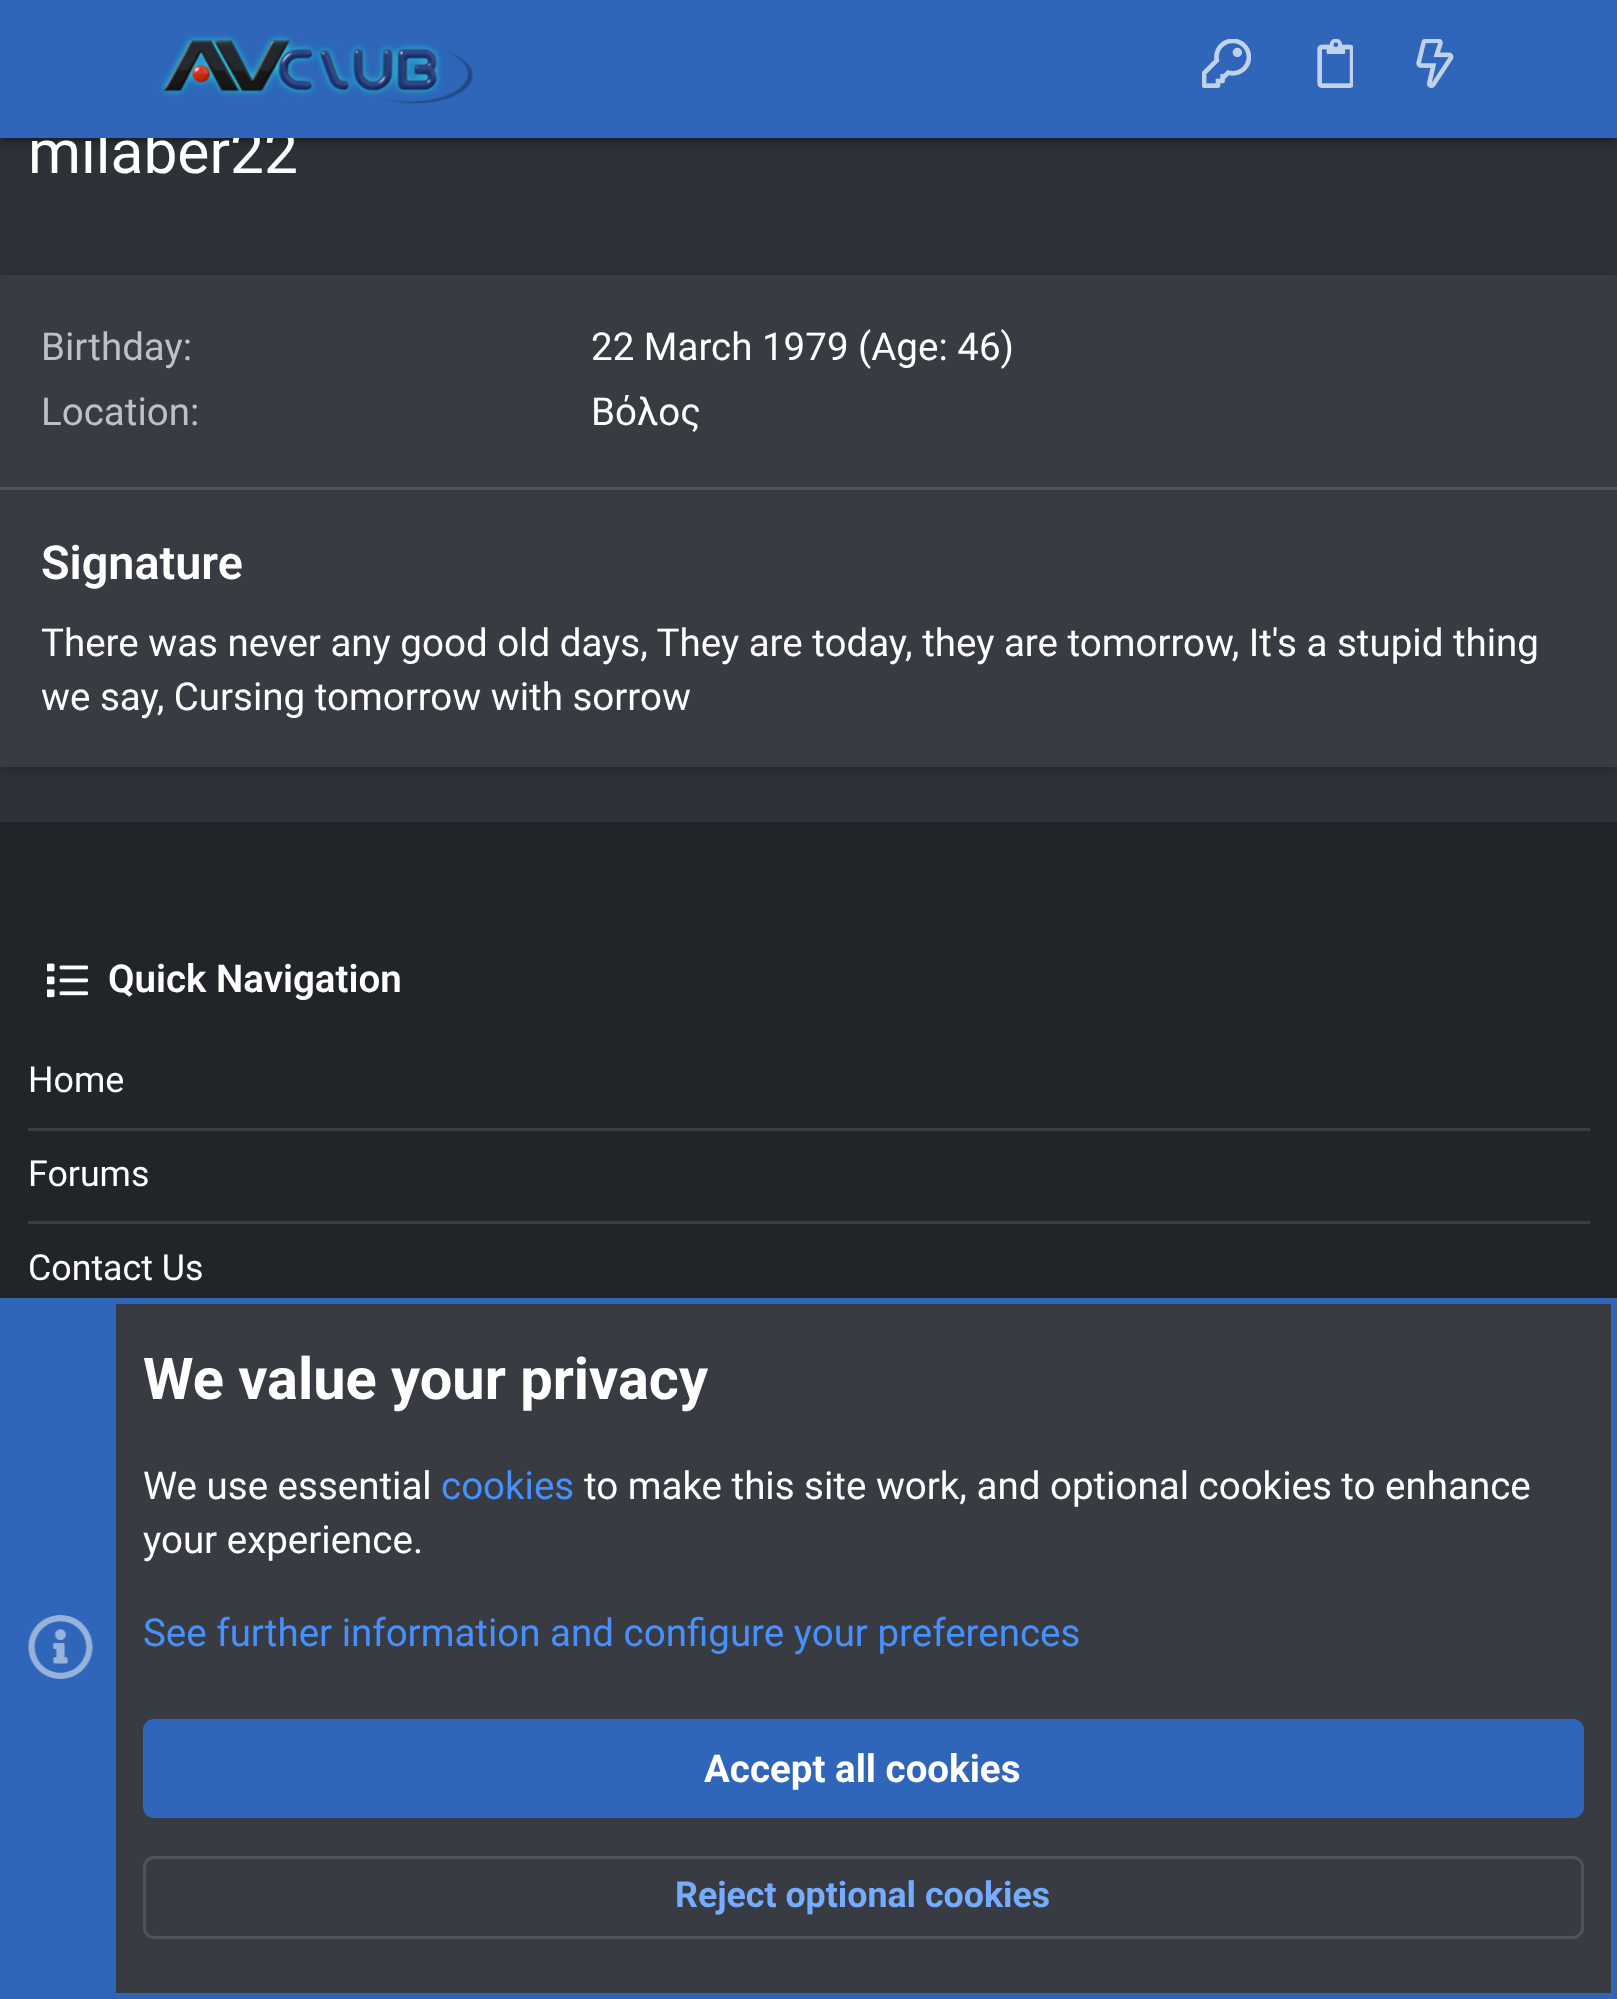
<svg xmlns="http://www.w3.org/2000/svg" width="1617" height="1999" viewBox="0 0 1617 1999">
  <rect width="100%" height="100%" fill="#2d3238"/>
  <path d="M0 3h1617v137H0z" fill="#00000033" filter="blur(7px)"/>
  <path d="M6 14h1606v126H6z" fill="#0000001f" filter="blur(1.5px)"/>
  <path d="M0 6h1617v137H0z" fill="#00000024" filter="blur(3px)"/>
  <path d="M0 278h1617v492H0z" fill="#00000033" filter="blur(7px)"/>
  <path d="M0 275h1617v492H0z" fill="#383c42"/>
  <path d="M0 487h1617v3H0z" fill="#505359"/>
  <path d="M0 822h1617v476H0z" fill="#212428"/>
  <image x="47" y="963" width="41" height="35" href="img/5.png"/>
  <path d="M28 1128h1562v3H28z" fill="#3c3e42"/>
  <path d="M28 1221h1562v3H28z" fill="#3c3e42"/>
  <path d="M116 1304h1495v689H116z" fill="#383c42"/>
  <path d="M3 1301h1611v695H3z" fill="none" stroke="#2f66b9" stroke-width="6"/>
  <path d="M6 1304h110v689H6z" fill="#2f66b9"/>
  <image x="28" y="1615" width="65" height="64" href="img/6.png"/>
  <rect x="143" y="1719" width="1441" height="99" rx="11" fill="#2f66b9"/>
  <rect x="144.5" y="1857.5" width="1438" height="80" rx="9.5" fill="none" stroke="#505359" stroke-width="3"/>
  <text x="28" y="173" font-family="Roboto" font-size="60.5" fill="#fff">milaber22</text>
  <path d="M0 0h1617v138H0z" fill="#2f66b9"/>
  <image x="1416" y="39" width="38" height="49" href="img/4.png"/>
  <image x="1317" y="39" width="36" height="49" href="img/3.png"/>
  <image x="1202" y="39" width="49" height="49" href="img/2.png"/>
  <image x="159" y="34" width="314" height="70" href="img/1.png"/>
  <text x="41" y="360" font-family="Roboto" font-size="38.5" fill="#bcc0c7">Birthday:</text>
  <text x="591" y="360" font-family="Roboto" font-size="38.5" fill="#fff">22 March 1979 (Age: 46)</text>
  <text x="41" y="425" font-family="Roboto" font-size="38.5" fill="#bcc0c7">Location:</text>
  <text x="591" y="425" font-family="Roboto" font-size="38.5" fill="#fff">Βόλος</text>
  <text x="41" y="579" font-family="Roboto" font-size="46.75" font-weight="600" fill="#fff">Signature</text>
  <g font-family="Roboto" font-size="38.5" fill="#fff">
    <text x="41" y="656">There was never any good old days, They are today, they are tomorrow, It's a stupid thing</text>
    <text x="41" y="710">we say, Cursing tomorrow with sorrow</text>
  </g>
  <text x="108" y="992" font-family="Roboto" font-size="38.5" font-weight="600" fill="#fff">Quick Navigation</text>
  <g font-family="Roboto" font-size="35.75" fill="#fff">
    <text x="28" y="1092">Home</text>
    <text x="28" y="1186">Forums</text>
    <text x="28" y="1280">Contact Us</text>
  </g>
  <text x="143" y="1399" font-family="Roboto" font-size="57.75" font-weight="bold" fill="#fff">We value your privacy</text>
  <text x="143" y="1499" font-family="Roboto" font-size="38.5" fill="#fff">We use essential</text>
  <text x="441" y="1499" font-family="Roboto" font-size="38.5" fill="#4791ff">cookies</text>
  <g font-family="Roboto" font-size="38.5" fill="#fff">
    <text x="584" y="1499">to make this site work, and optional cookies to enhance</text>
    <text x="143" y="1553">your experience.</text>
  </g>
  <text x="143" y="1646" font-family="Roboto" font-size="38.5" fill="#4791ff">See further information and configure your preferences</text>
  <text x="704" y="1782" font-family="Roboto" font-size="38.5" font-weight="bold" fill="#fff">Accept all cookies</text>
  <text x="675" y="1907" font-family="Roboto" font-size="35.75" font-weight="bold" fill="#75acff">Reject optional cookies</text>
</svg>
